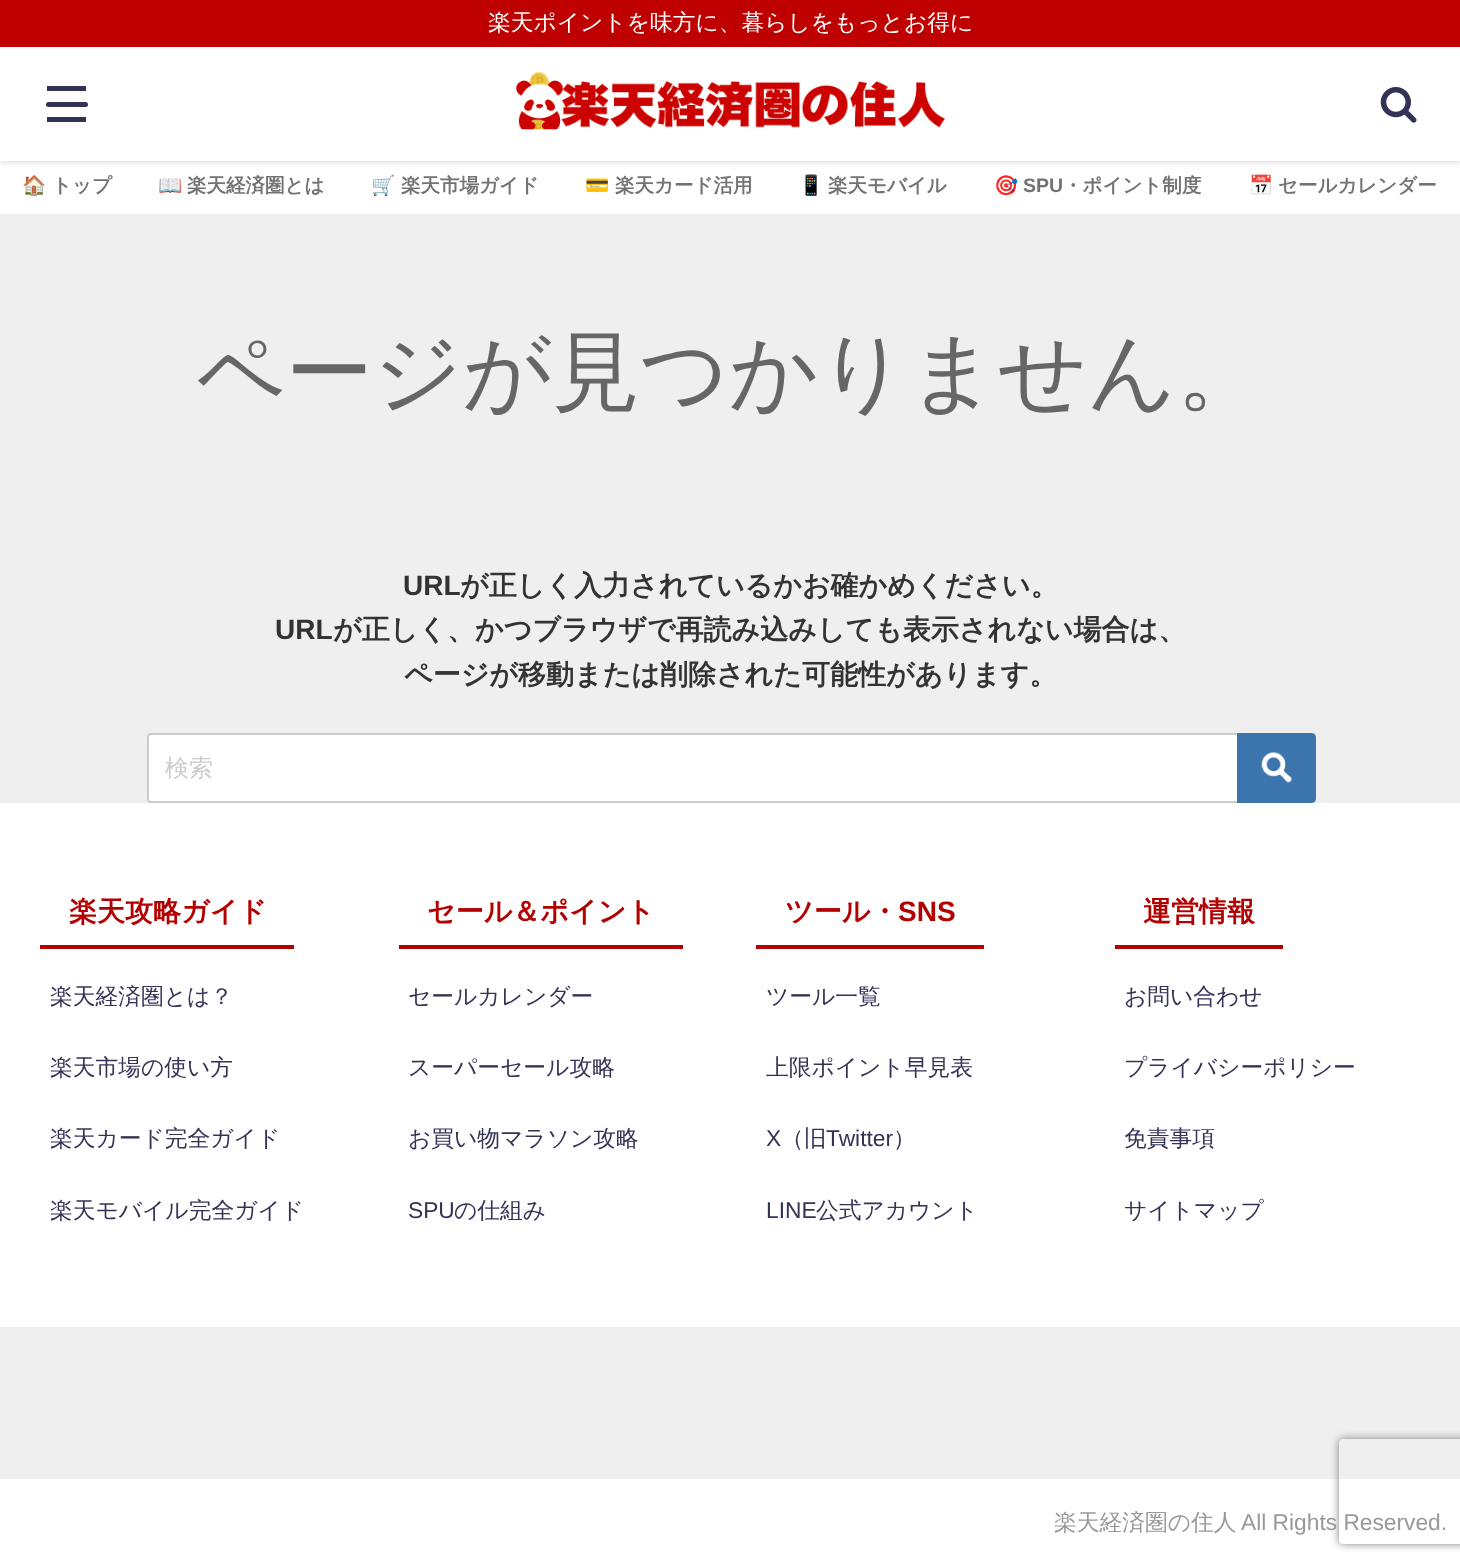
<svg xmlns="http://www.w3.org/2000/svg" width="1460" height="1567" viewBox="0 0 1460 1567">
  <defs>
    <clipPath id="clip1"><path d="M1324 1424H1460V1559H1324ZM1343 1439H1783C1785 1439 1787 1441 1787 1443V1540C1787 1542 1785 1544 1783 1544H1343C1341 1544 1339 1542 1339 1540V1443C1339 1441 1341 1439 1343 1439Z" clip-rule="evenodd"/></clipPath>
  </defs>
  <rect width="100%" height="100%" fill="#efefef"/>
  <path d="M0 161h1460v53H0z" fill="#fff"/>
  <path d="M0 0h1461v161H0z" fill="#00000033" filter="blur(3.5px)"/>
  <path d="M0 47h1460v114H0z" fill="#fff"/>
  <path d="M0 0h1460v47H0z" fill="#bf0001"/>
  <path d="M47 86h39v5H47z" fill="#335"/>
  <rect x="46" y="102" width="42" height="5" rx="2.5" fill="#335"/>
  <path d="M47 117h39v5H47z" fill="#335"/>
  <image x="516" y="71" width="429" height="59" href="img/1.png"/>
  <image x="1380" y="87" width="37" height="36" href="img/2.png"/>
  <rect x="148" y="734" width="1167" height="68" rx="3" fill="#fff" stroke="#ccc" stroke-width="2"/>
  <path d="M1237 733H1311C1314 733 1316 735 1316 738V798C1316 801 1314 803 1311 803H1237Z" fill="#3c74ad"/>
  <image x="1261" y="752" width="31" height="31" href="img/3.png"/>
  <path d="M0 803h1460v524H0z" fill="#fff"/>
  <path d="M40 945h254v4H40z" fill="#b30000"/>
  <path d="M399 945h284v4H399z" fill="#b30000"/>
  <path d="M756 945h228v4H756z" fill="#b30000"/>
  <path d="M1115 945h168v4H1115z" fill="#b30000"/>
  <path d="M0 1479h1460v88H0z" fill="#fff"/>
  <g clip-path="url(#clip1)">
    <rect x="1339" y="1439" width="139" height="105" rx="4" fill="#808080" filter="blur(4.5px)"/>
  </g>
  <text x="488" y="30" font-family="WenQuanYi Zen Hei" font-size="22.75" font-weight="500" fill="#fff">楽天ポイントを味方に、暮らしをもっとお得に</text>
  <text x="22" y="192" font-family="Noto Color Emoji" font-size="19.5" font-weight="bold" fill="#737373">🏠️</text>
  <text x="52" y="192" font-family="WenQuanYi Zen Hei" font-size="19.5" font-weight="bold" fill="#737373">トップ</text>
  <text x="158" y="192" font-family="Noto Color Emoji" font-size="19.5" font-weight="bold" fill="#737373">📖</text>
  <text x="187" y="192" font-family="WenQuanYi Zen Hei" font-size="19.5" font-weight="bold" fill="#737373">楽天経済圏とは</text>
  <text x="371" y="192" font-family="Noto Color Emoji" font-size="19.5" font-weight="bold" fill="#737373">🛒</text>
  <text x="401" y="192" font-family="WenQuanYi Zen Hei" font-size="19.5" font-weight="bold" fill="#737373">楽天市場ガイド</text>
  <text x="585" y="192" font-family="Noto Color Emoji" font-size="19.5" font-weight="bold" fill="#737373">💳️</text>
  <text x="615" y="192" font-family="WenQuanYi Zen Hei" font-size="19.5" font-weight="bold" fill="#737373">楽天カード活用</text>
  <text x="799" y="192" font-family="Noto Color Emoji" font-size="19.5" font-weight="bold" fill="#737373">📱</text>
  <text x="828" y="192" font-family="WenQuanYi Zen Hei" font-size="19.5" font-weight="bold" fill="#737373">楽天モバイル</text>
  <text x="994" y="192" font-family="Noto Color Emoji" font-size="19.5" font-weight="bold" fill="#737373">🎯</text>
  <text x="1023" y="192" font-family="Liberation Sans" font-size="19.5" font-weight="bold" fill="#737373">SPU</text>
  <text x="1063" y="192" font-family="WenQuanYi Zen Hei" font-size="19.5" font-weight="bold" fill="#737373">・ポイント制度</text>
  <text x="1249" y="192" font-family="Noto Color Emoji" font-size="19.5" font-weight="bold" fill="#737373">📅</text>
  <text x="1278" y="192" font-family="WenQuanYi Zen Hei" font-size="19.5" font-weight="bold" fill="#737373">セールカレンダー</text>
  <text x="196" y="402" font-family="WenQuanYi Zen Hei" font-size="87.5" font-weight="500" fill="#666">ページが見つかりません。</text>
  <text x="403" y="595" font-family="Liberation Sans" font-size="28" font-weight="bold" fill="#333">URL</text>
  <text x="460" y="595" font-family="WenQuanYi Zen Hei" font-size="28" font-weight="bold" fill="#333">が正しく入力されているかお確かめください。</text>
  <text x="275" y="639" font-family="Liberation Sans" font-size="28" font-weight="bold" fill="#333">URL</text>
  <g font-family="WenQuanYi Zen Hei" font-size="28" font-weight="bold" fill="#333">
    <text x="333" y="639">が正しく、かつブラウザで再読み込みしても表示されない場合は、</text>
    <text x="404" y="684">ページが移動または削除された可能性があります。</text>
  </g>
  <text x="165" y="776" font-family="WenQuanYi Zen Hei" font-size="24" font-weight="500" fill="#ccc">検索</text>
  <text x="69" y="921" font-family="WenQuanYi Zen Hei" font-size="28" font-weight="bold" fill="#b30000">楽天攻略ガイド</text>
  <g font-family="WenQuanYi Zen Hei" font-size="22.75" font-weight="500" fill="#335">
    <text x="50" y="1004">楽天経済圏とは？</text>
    <text x="50" y="1075">楽天市場の使い方</text>
    <text x="50" y="1146">楽天カード完全ガイド</text>
    <text x="50" y="1218">楽天モバイル完全ガイド</text>
  </g>
  <text x="427" y="921" font-family="WenQuanYi Zen Hei" font-size="28" font-weight="bold" fill="#b30000">セール＆ポイント</text>
  <g font-family="WenQuanYi Zen Hei" font-size="22.75" font-weight="500" fill="#335">
    <text x="408" y="1004">セールカレンダー</text>
    <text x="408" y="1075">スーパーセール攻略</text>
    <text x="408" y="1146">お買い物マラソン攻略</text>
  </g>
  <text x="408" y="1218" font-family="Liberation Sans" font-size="22.75" fill="#335">SPU</text>
  <text x="454" y="1218" font-family="WenQuanYi Zen Hei" font-size="22.75" font-weight="500" fill="#335">の仕組み</text>
  <text x="785" y="921" font-family="WenQuanYi Zen Hei" font-size="28" font-weight="bold" fill="#b30000">ツール・</text>
  <text x="898" y="921" font-family="Liberation Sans" font-size="28" font-weight="bold" fill="#b30000">SNS</text>
  <g font-family="WenQuanYi Zen Hei" font-size="22.75" font-weight="500" fill="#335">
    <text x="766" y="1004">ツール一覧</text>
    <text x="766" y="1075">上限ポイント早見表</text>
  </g>
  <text x="766" y="1146" font-family="Liberation Sans" font-size="22.75" fill="#335">X</text>
  <text x="781" y="1146" font-family="WenQuanYi Zen Hei" font-size="22.75" font-weight="500" fill="#335">（旧</text>
  <text x="826" y="1146" font-family="Liberation Sans" font-size="22.75" fill="#335">Twitter</text>
  <text x="893" y="1146" font-family="WenQuanYi Zen Hei" font-size="22.75" font-weight="500" fill="#335">）</text>
  <text x="766" y="1218" font-family="Liberation Sans" font-size="22.75" fill="#335">LINE</text>
  <text x="816" y="1218" font-family="WenQuanYi Zen Hei" font-size="22.75" font-weight="500" fill="#335">公式アカウント</text>
  <text x="1143" y="921" font-family="WenQuanYi Zen Hei" font-size="28" font-weight="bold" fill="#b30000">運営情報</text>
  <g font-family="WenQuanYi Zen Hei" font-size="22.75" font-weight="500" fill="#335">
    <text x="1124" y="1004">お問い合わせ</text>
    <text x="1124" y="1075">プライバシーポリシー</text>
    <text x="1124" y="1146">免責事項</text>
    <text x="1124" y="1218">サイトマップ</text>
  </g>
  <text x="1054" y="1530" font-family="WenQuanYi Zen Hei" font-size="22.75" font-weight="500" fill="#999">楽天経済圏の住人</text>
  <text x="1241" y="1530" font-family="Liberation Sans" font-size="22.75" fill="#999">All Rights Reserved.</text>
</svg>
